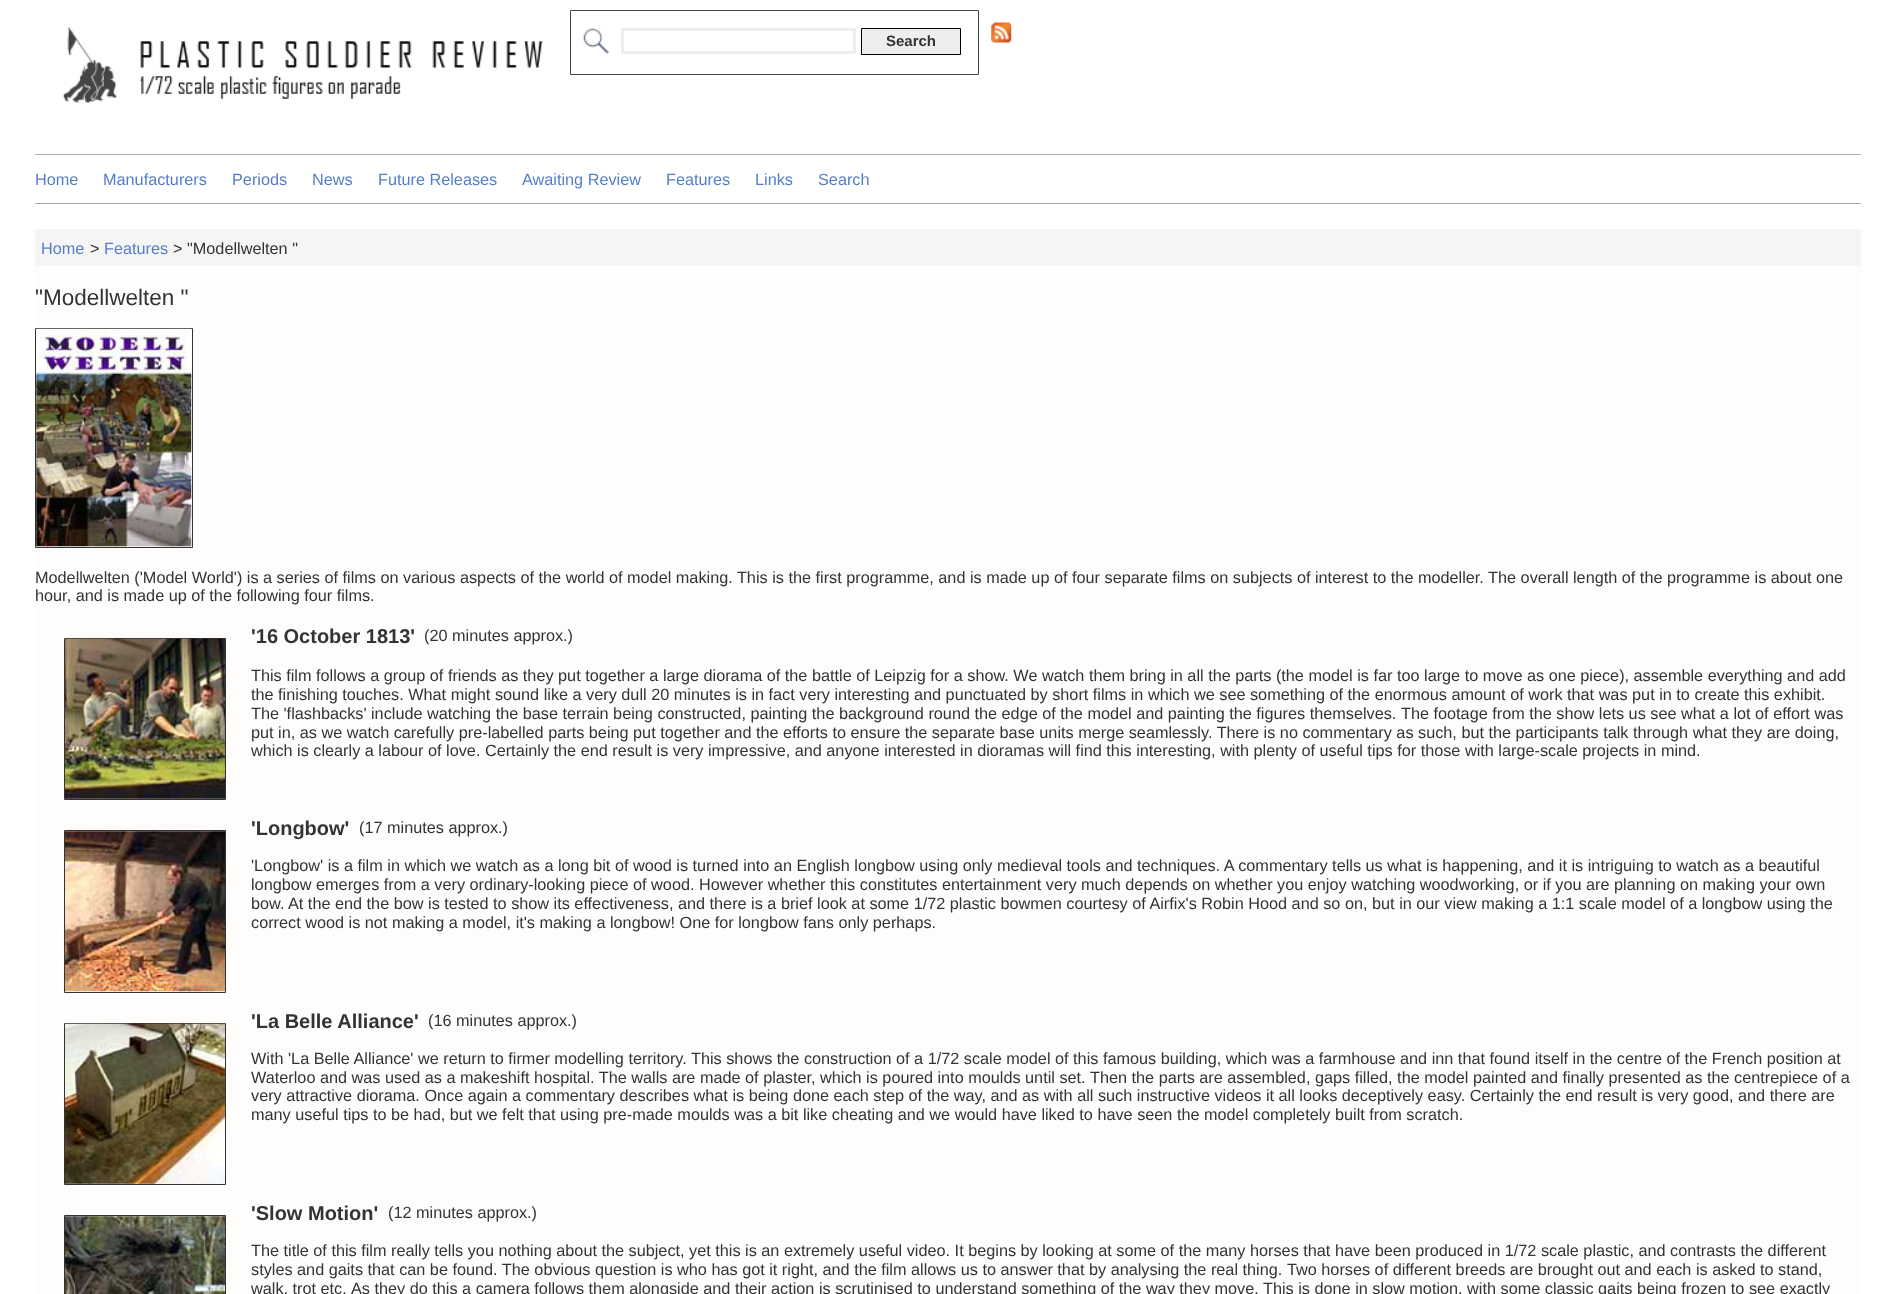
<svg xmlns="http://www.w3.org/2000/svg" width="1896" height="1294" viewBox="0 0 1896 1294">
  <rect width="100%" height="100%" fill="#fff"/>
  <image x="63" y="27" width="480" height="76" href="img/1.png"/>
  <path d="M570.5 10.5h408v64H570.5z" fill="none" stroke="#444"/>
  <image x="583" y="28" width="26" height="26" href="img/2.png"/>
  <path d="M622.5 29.5h232v23H622.5z" fill="none" stroke="#eee" stroke-width="3"/>
  <path d="M861.5 28.5h99v26H861.5z" fill="#eee" stroke="#000"/>
  <image x="991" y="22" width="21" height="21" href="img/3.png"/>
  <path d="M35 154h1826v1H35z" fill="#aaa"/>
  <path d="M35 203h1826v1H35z" fill="#aaa"/>
  <path d="M35 266h1826v1028H35z" fill="#fffcfc"/>
  <path d="M35 229h1826v37H35z" fill="#f5f5f5"/>
  <path d="M35.5 328.5h157v219H35.5z" fill="none" stroke="#333"/>
  <image x="36" y="328" width="156" height="219" href="img/4.png"/>
  <path d="M64.5 638.5h161v161H64.5z" fill="none" stroke="#333"/>
  <image x="65" y="638" width="160" height="161" href="img/5.png"/>
  <path d="M64.5 830.5h161v162H64.5z" fill="none" stroke="#333"/>
  <image x="65" y="831" width="160" height="161" href="img/6.png"/>
  <path d="M64.5 1023.5h161v161H64.5z" fill="none" stroke="#333"/>
  <image x="65" y="1023" width="160" height="161" href="img/7.png"/>
  <path d="M64.5 1215.5h161v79H64.5z" fill="none" stroke="#333"/>
  <image x="65" y="1216" width="160" height="78" href="img/8.png"/>
  <text x="886" y="46" font-family="Liberation Sans" font-size="15" font-weight="bold" fill="#333">Search</text>
  <g font-family="Liberation Sans" font-size="16.25" fill="#557ec7">
    <text x="35" y="185">Home</text>
    <text x="103" y="185">Manufacturers</text>
    <text x="232" y="185">Periods</text>
    <text x="312" y="185">News</text>
    <text x="378" y="185">Future Releases</text>
    <text x="522" y="185">Awaiting Review</text>
    <text x="666" y="185">Features</text>
    <text x="755" y="185">Links</text>
    <text x="818" y="185">Search</text>
    <text x="41" y="254">Home</text>
  </g>
  <text x="90" y="254" font-family="Liberation Sans" font-size="16.25" fill="#333">&gt;</text>
  <text x="104" y="254" font-family="Liberation Sans" font-size="16.25" fill="#557ec7">Features</text>
  <text x="173" y="254" font-family="Liberation Sans" font-size="16.25" fill="#333">&gt; "Modellwelten "</text>
  <text x="35" y="305" font-family="Liberation Sans" font-size="22.5" fill="#333">"Modellwelten "</text>
  <g font-family="Liberation Sans" font-size="16.25" fill="#333">
    <text x="35" y="583">Modellwelten ('Model World') is a series of films on various aspects of the world of model making. This is the first programme, and is made up of four separate films on subjects of interest to the modeller. The overall length of the programme is about one</text>
    <text x="35" y="601">hour, and is made up of the following four films.</text>
  </g>
  <text x="251" y="643" font-family="Liberation Sans" font-size="20" font-weight="bold" fill="#333">'16 October 1813'</text>
  <g font-family="Liberation Sans" font-size="16.25" fill="#333">
    <text x="424" y="641">(20 minutes approx.)</text>
    <text x="251" y="681">This film follows a group of friends as they put together a large diorama of the battle of Leipzig for a show. We watch them bring in all the parts (the model is far too large to move as one piece), assemble everything and add</text>
    <text x="251" y="700">the finishing touches. What might sound like a very dull 20 minutes is in fact very interesting and punctuated by short films in which we see something of the enormous amount of work that was put in to create this exhibit.</text>
    <text x="251" y="719">The 'flashbacks' include watching the base terrain being constructed, painting the background round the edge of the model and painting the figures themselves.</text>
    <text x="1401" y="719">The footage from the show lets us see what a lot of effort was</text>
    <text x="251" y="738">put in, as we watch carefully pre-labelled parts being put together and the efforts to ensure the separate base units merge seamlessly. There is no commentary as such, but the participants talk through what they are doing,</text>
    <text x="251" y="756">which is clearly a labour of love. Certainly the end result is very impressive, and anyone interested in dioramas will find this interesting, with plenty of useful tips for those with large-scale projects in mind.</text>
  </g>
  <text x="251" y="835" font-family="Liberation Sans" font-size="20" font-weight="bold" fill="#333">'Longbow'</text>
  <g font-family="Liberation Sans" font-size="16.25" fill="#333">
    <text x="359" y="833">(17 minutes approx.)</text>
    <text x="251" y="871">'Longbow' is a film in which we watch as a long bit of wood is turned into an English longbow using only medieval tools and techniques. A commentary tells us what is happening, and it is intriguing to watch as a beautiful</text>
    <text x="251" y="890">longbow emerges from a very ordinary-looking piece of wood. However whether this constitutes entertainment very much depends on whether you enjoy watching woodworking, or if you are planning on making your own</text>
    <text x="251" y="909">bow.</text>
    <text x="288" y="909">At the end the bow is tested to show its effectiveness, and there is a brief look at some 1/72 plastic bowmen courtesy of Airfix's Robin Hood and so on, but in our view making a 1:1 scale model of a longbow using the</text>
    <text x="251" y="928">correct wood is not making a model, it's making a longbow! One for longbow fans only perhaps.</text>
  </g>
  <text x="251" y="1028" font-family="Liberation Sans" font-size="20" font-weight="bold" fill="#333">'La Belle Alliance'</text>
  <g font-family="Liberation Sans" font-size="16.25" fill="#333">
    <text x="428" y="1026">(16 minutes approx.)</text>
    <text x="251" y="1064">With 'La Belle Alliance' we return to firmer modelling territory.</text>
    <text x="691" y="1064">This shows the construction of a 1/72 scale model of this famous building, which was a farmhouse and inn that found itself in the centre of the French position at</text>
    <text x="251" y="1083">Waterloo and was used as a makeshift hospital. The walls are made of plaster, which is poured into moulds until set.</text>
    <text x="1090" y="1083">Then the parts are assembled, gaps filled, the model painted and finally presented as the centrepiece of a</text>
    <text x="251" y="1101">very attractive diorama. Once again a commentary describes what is being done each step of the way, and as with all such instructive videos it all looks deceptively easy. Certainly the end result is very good, and there are</text>
    <text x="251" y="1120">many useful tips to be had, but we felt that using pre-made moulds was a bit like cheating and we would have liked to have seen the model completely built from scratch.</text>
  </g>
  <text x="251" y="1220" font-family="Liberation Sans" font-size="20" font-weight="bold" fill="#333">'Slow Motion'</text>
  <g font-family="Liberation Sans" font-size="16.25" fill="#333">
    <text x="388" y="1218">(12 minutes approx.)</text>
    <text x="251" y="1256">The title of this film really tells you nothing about the subject, yet this is an extremely useful video. It begins by looking at some of the many horses that have been produced in 1/72 scale plastic, and contrasts the different</text>
    <text x="251" y="1275">styles and gaits that can be found. The obvious question is who has got it right, and the film allows us to answer that by analysing the real thing.</text>
    <text x="1287" y="1275">Two horses of different breeds are brought out and each is asked to stand,</text>
    <text x="251" y="1294">walk, trot etc.</text>
    <text x="351" y="1294">As they do this a camera follows them alongside and their action is scrutinised to understand something of the way they move.</text>
    <text x="1263" y="1294">This is done in slow motion, with some classic gaits being frozen to see exactly</text>
  </g>
</svg>
